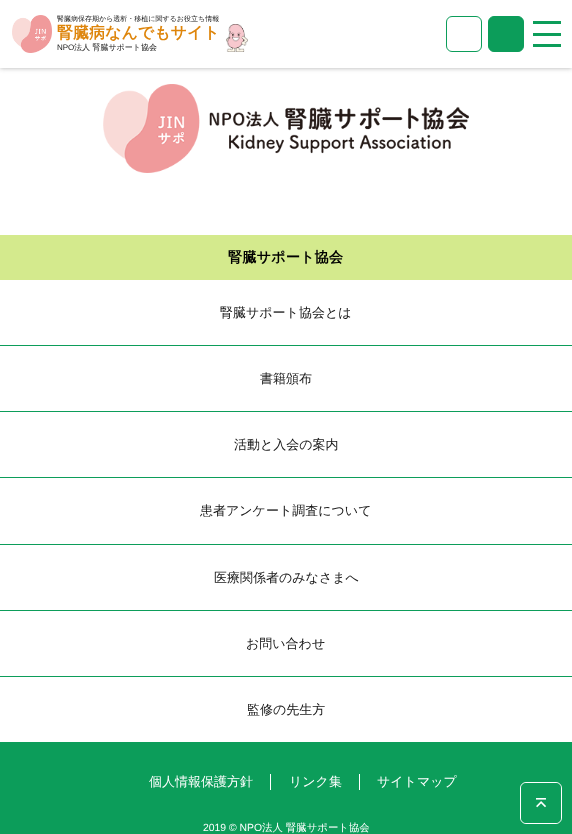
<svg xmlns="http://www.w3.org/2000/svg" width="572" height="834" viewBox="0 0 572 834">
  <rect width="100%" height="100%" fill="#fff"/>
  <path d="M0 0h572v68H0z" fill="#afafaf" filter="blur(2.5px)"/>
  <path d="M0 0h572v68H0z" fill="#fff"/>
  <image x="12" y="15" width="40" height="38" href="img/1.png"/>
  <image x="226" y="24" width="22" height="28" href="img/2.png"/>
  <rect x="446.5" y="16.5" width="35" height="35" rx="5.5" fill="none" stroke="#0c9d5a"/>
  <rect x="488.5" y="16.5" width="35" height="35" rx="5.5" fill="#0c9d5a" stroke="#0c9d5a"/>
  <path d="M533 21h28v3H533z" fill="#0c9d5a"/>
  <path d="M533 33h28v3H533z" fill="#0c9d5a"/>
  <path d="M533 44h28v3H533z" fill="#0c9d5a"/>
  <image x="103" y="84" width="366" height="89" href="img/3.png"/>
  <path d="M0 235h572v45H0z" fill="#d4ea8d"/>
  <path d="M0 345h572v1H0z" fill="#0c9d5a"/>
  <path d="M0 411h572v1H0z" fill="#0c9d5a"/>
  <path d="M0 477h572v1H0z" fill="#0c9d5a"/>
  <path d="M0 544h572v1H0z" fill="#0c9d5a"/>
  <path d="M0 610h572v1H0z" fill="#0c9d5a"/>
  <path d="M0 676h572v1H0z" fill="#0c9d5a"/>
  <path d="M0 742h572v92H0z" fill="#0c9d5a"/>
  <path d="M270 774h1v16H270z" fill="#fff"/>
  <path d="M359 774h1v16H359z" fill="#fff"/>
  <rect x="520.5" y="782.5" width="41" height="41" rx="5.5" fill="none" stroke="#fff"/>
  <image x="521" y="783" width="40" height="40" href="img/4.png"/>
  <text x="57" y="21" font-family="WenQuanYi Zen Hei" font-size="7" font-weight="500" fill="#171717">腎臓病保存期から透析・移植に関するお役立ち情報</text>
  <text x="57" y="38" font-family="WenQuanYi Zen Hei" font-size="16" font-weight="bold" fill="#de850b">腎臓病なんでもサイト</text>
  <text x="57" y="50" font-family="Liberation Sans" font-size="8" fill="#171717">NPO</text>
  <text x="74" y="50" font-family="WenQuanYi Zen Hei" font-size="8" font-weight="500" fill="#171717">法人 腎臓サポート協会</text>
  <text x="228" y="262" font-family="WenQuanYi Zen Hei" font-size="14.25" font-weight="bold" fill="#000">腎臓サポート協会</text>
  <g font-family="WenQuanYi Zen Hei" font-size="13" font-weight="500" fill="#171717">
    <text x="220" y="317">腎臓サポート協会とは</text>
    <text x="260" y="383">書籍頒布</text>
    <text x="234" y="449">活動と入会の案内</text>
    <text x="200" y="515">患者アンケート調査について</text>
    <text x="214" y="582">医療関係者のみなさまへ</text>
    <text x="246" y="648">お問い合わせ</text>
    <text x="247" y="714">監修の先生方</text>
  </g>
  <g font-family="WenQuanYi Zen Hei" font-size="13" font-weight="500" fill="#fff">
    <text x="149" y="786">個人情報保護方針</text>
    <text x="289" y="786">リンク集</text>
    <text x="377" y="786">サイトマップ</text>
  </g>
  <text x="203" y="831" font-family="Liberation Sans" font-size="10.4" fill="#fff">2019 © NPO</text>
  <text x="262" y="831" font-family="WenQuanYi Zen Hei" font-size="10.4" font-weight="500" fill="#fff">法人 腎臓サポート協会</text>
</svg>
